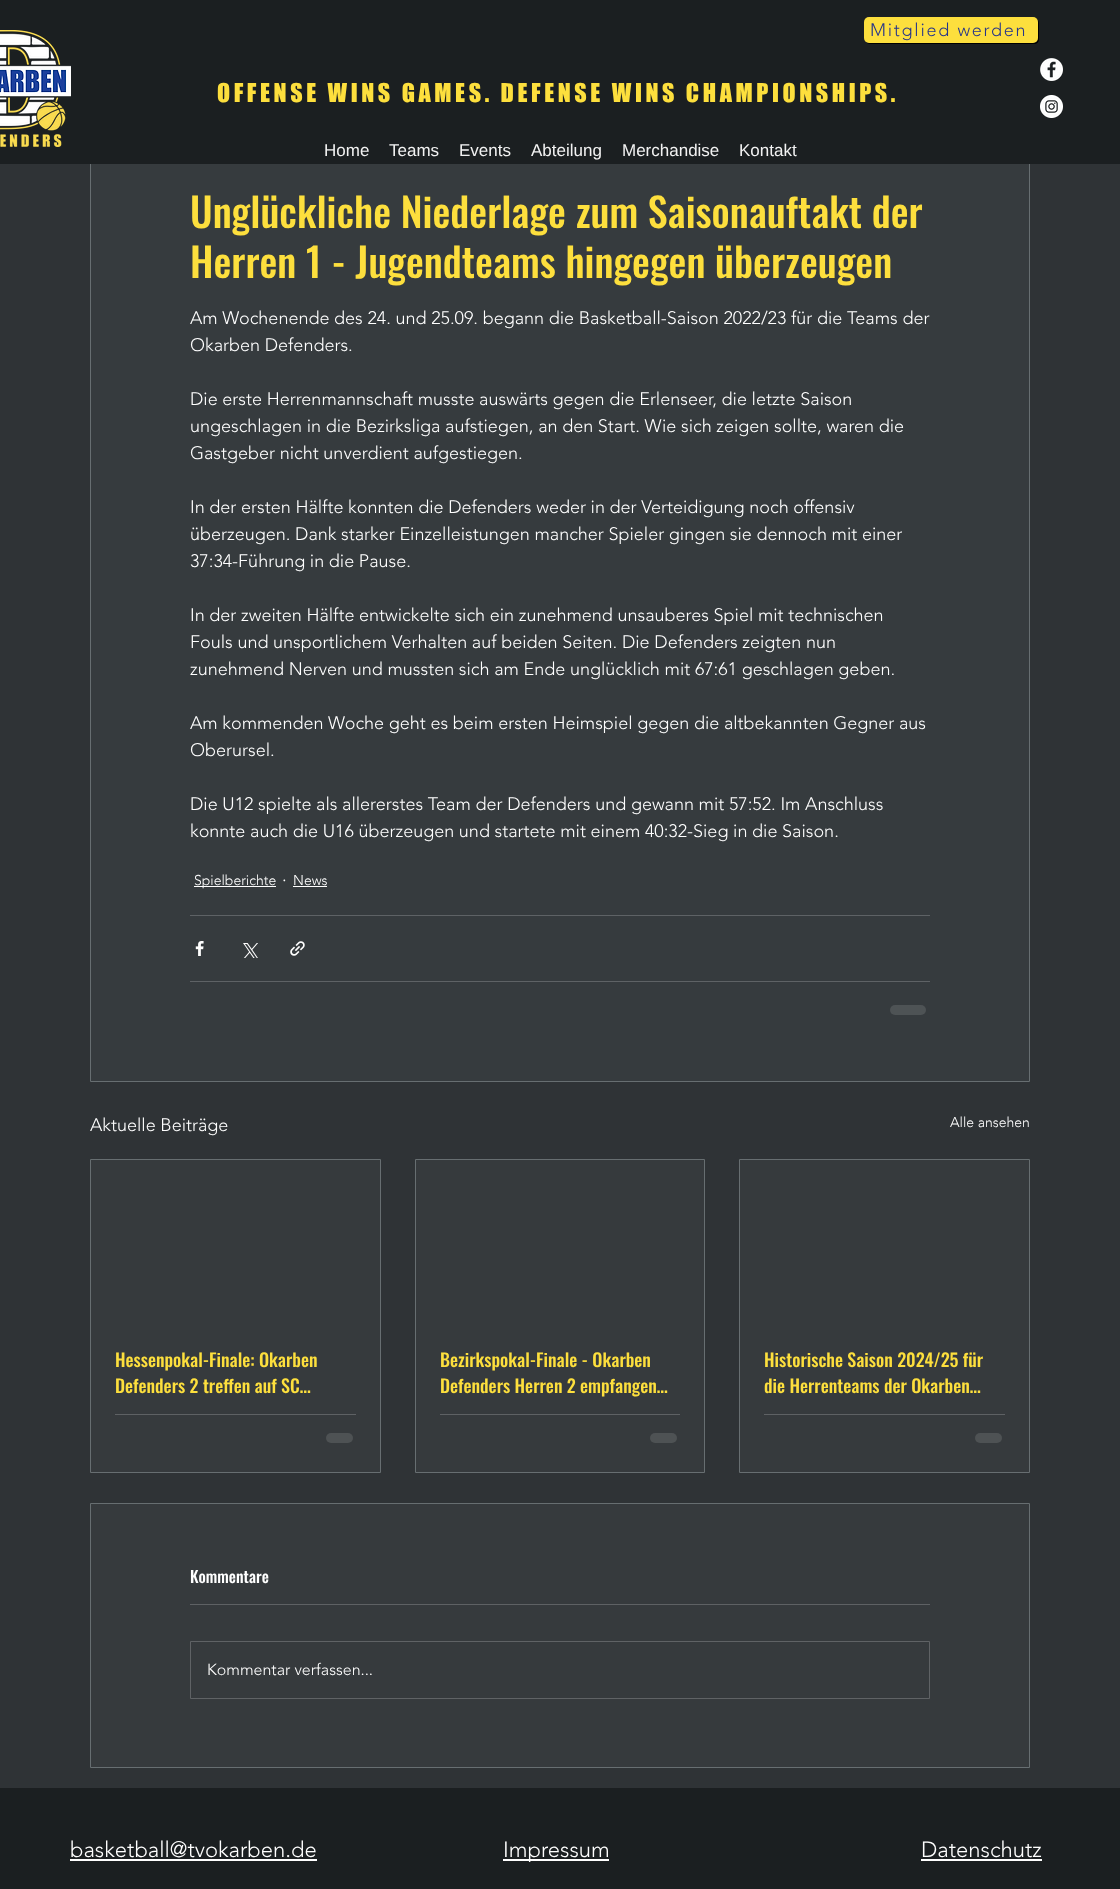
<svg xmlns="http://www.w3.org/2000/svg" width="1120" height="1889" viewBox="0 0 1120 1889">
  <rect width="100%" height="100%" fill="#2f3336"/>
  <path d="M91 164h938v917H91z" fill="#363b3e"/>
  <path d="M90.5 85.5h939v996H90.5z" fill="none" stroke="#676e71"/>
  <path d="M0 0h1120v164H0z" fill="#1b1f21"/>
  <image x="0" y="30" width="71" height="117" href="img/1.png"/>
  <path d="M866 42C867 43 868 44 870 44H1034C1037 44 1039 42 1039 39V23C1039 21 1038 20 1037 19C1038 20 1038 21 1038 22V38C1038 41 1036 43 1033 43H869C868 43 867 43 866 42Z" fill="#000"/>
  <rect x="864" y="17" width="174" height="26" rx="5" fill="#fddf3d"/>
  <image x="1040" y="58" width="23" height="23" href="img/2.png"/>
  <image x="1040" y="95" width="23" height="23" href="img/3.png"/>
  <path d="M194 886h82v1H194z" fill="#fff"/>
  <path d="M293 886h34v1H293z" fill="#fff"/>
  <path d="M190 915h740v1H190z" fill="#5e6265"/>
  <image x="195" y="941" width="9" height="15" href="img/4.png"/>
  <image x="243" y="943" width="15" height="15" href="img/5.png"/>
  <image x="290" y="941" width="15" height="15" href="img/6.png"/>
  <path d="M190 981h740v1H190z" fill="#5e6265"/>
  <rect x="890" y="1005" width="36" height="10" rx="5" fill="#4e5355"/>
  <path d="M90.5 1159.5h290v313H90.5z" fill="#363a3d" stroke="#676e71"/>
  <path d="M115 1414h241v1H115z" fill="#5e6164"/>
  <rect x="326" y="1433" width="27" height="10" rx="5" fill="#4e5254"/>
  <path d="M415.5 1159.5h289v313H415.5z" fill="#363a3d" stroke="#676e71"/>
  <path d="M440 1414h240v1H440z" fill="#5e6164"/>
  <rect x="650" y="1433" width="27" height="10" rx="5" fill="#4e5254"/>
  <path d="M739.5 1159.5h290v313H739.5z" fill="#363a3d" stroke="#676e71"/>
  <path d="M764 1414h241v1H764z" fill="#5e6164"/>
  <rect x="975" y="1433" width="27" height="10" rx="5" fill="#4e5254"/>
  <path d="M90.5 1503.5h939v264H90.5z" fill="#363a3d" stroke="#676e71"/>
  <path d="M190 1604h740v1H190z" fill="#5e6164"/>
  <path d="M190.5 1641.5h739v57H190.5z" fill="none" stroke="#5f6265"/>
  <path d="M0 1788h1120v101H0z" fill="#1b1f21"/>
  <path d="M70 1859h247v2H70z" fill="#fff"/>
  <path d="M503 1859h106v2H503z" fill="#fff"/>
  <path d="M921 1859h121v2H921z" fill="#fff"/>
  <text x="217" y="102" font-family="'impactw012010'" font-size="24" letter-spacing="3.6" fill="#fddf3d">OFFENSE WINS GAMES. DEFENSE WINS CHAMPIONSHIPS.</text>
  <text x="870" y="36" font-family="'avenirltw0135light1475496'" font-size="18" font-weight="300" letter-spacing="1.75" fill="#26358b">Mitglied werden</text>
  <g font-family="Liberation Sans" font-size="17" fill="#f2f2f2">
    <text x="324" y="156">Home</text>
    <text x="389" y="156">Teams</text>
    <text x="459" y="156">Events</text>
    <text x="531" y="156">Abteilung</text>
    <text x="622" y="156">Merchandise</text>
    <text x="739" y="156">Kontakt</text>
  </g>
  <g font-family="Oswald" font-size="40" font-weight="500" fill="#fddf3d">
    <text x="190" y="228">Unglückliche Niederlage zum Saisonauftakt der</text>
    <text x="190" y="278">Herren 1 - Jugendteams hingegen überzeugen</text>
  </g>
  <g font-family="'avenirltw0135light1475496'" font-size="18" font-weight="300" fill="#fff">
    <text x="190" y="324">Am Wochenende des 24. und 25.09. begann die Basketball-Saison 2022/23 für die Teams der</text>
    <text x="190" y="351">Okarben Defenders.</text>
    <text x="190" y="405">Die erste Herrenmannschaft musste auswärts gegen die Erlenseer, die letzte Saison</text>
    <text x="190" y="432">ungeschlagen in die Bezirksliga aufstiegen, an den Start. Wie sich zeigen sollte, waren die</text>
    <text x="190" y="459">Gastgeber nicht unverdient aufgestiegen.</text>
    <text x="190" y="513">In der ersten Hälfte konnten die Defenders weder in der Verteidigung noch offensiv</text>
    <text x="190" y="540">überzeugen. Dank starker Einzelleistungen mancher Spieler gingen sie dennoch mit einer</text>
    <text x="190" y="567">37:34-Führung in die Pause.</text>
    <text x="190" y="621">In der zweiten Hälfte entwickelte sich ein zunehmend unsauberes Spiel mit technischen</text>
    <text x="190" y="648">Fouls und unsportlichem Verhalten auf beiden Seiten. Die Defenders zeigten nun</text>
    <text x="190" y="675">zunehmend Nerven und mussten sich am Ende unglücklich mit 67:61 geschlagen geben.</text>
    <text x="190" y="729">Am kommenden Woche geht es beim ersten Heimspiel gegen die altbekannten Gegner aus</text>
    <text x="190" y="756">Oberursel.</text>
    <text x="190" y="810">Die U12 spielte als allererstes Team der Defenders und gewann mit 57:52. Im Anschluss</text>
    <text x="190" y="837">konnte auch die U16 überzeugen und startete mit einem 40:32-Sieg in die Saison.</text>
  </g>
  <text x="194" y="885" font-family="'avenirltw0135light1475496'" font-size="14" font-weight="300" fill="#fff">Spielberichte</text>
  <text x="282" y="886" font-family="'avenirltw0135light1475496'" font-size="18" font-weight="300" fill="#fff">·</text>
  <text x="293" y="885" font-family="'avenirltw0135light1475496'" font-size="14" font-weight="300" fill="#fff">News</text>
  <text x="90" y="1131" font-family="'avenirltw0135light1475496'" font-size="18" font-weight="300" fill="#fff">Aktuelle Beiträge</text>
  <text x="950" y="1127" font-family="'avenirltw0135light1475496'" font-size="14" font-weight="300" fill="#fff">Alle ansehen</text>
  <g font-family="Oswald" font-size="18" font-weight="500" fill="#fddf3d">
    <text x="115" y="1367">Hessenpokal-Finale: Okarben</text>
    <text x="115" y="1393">Defenders 2 treffen auf SC…</text>
    <text x="440" y="1367">Bezirkspokal-Finale - Okarben</text>
    <text x="440" y="1393">Defenders Herren 2 empfangen…</text>
    <text x="764" y="1367">Historische Saison 2024/25 für</text>
    <text x="764" y="1393">die Herrenteams der Okarben…</text>
  </g>
  <text x="190" y="1583" font-family="Oswald" font-size="16" font-weight="500" fill="#fff">Kommentare</text>
  <text x="207" y="1675" font-family="'avenirltw0135light1475496'" font-size="16" font-weight="300" fill="#fff">Kommentar verfassen...</text>
  <g font-family="'avenirltw0135light1475496'" font-size="22" font-weight="300" fill="#fff">
    <text x="70" y="1857">basketball@tvokarben.de</text>
    <text x="503" y="1857">Impressum</text>
    <text x="921" y="1857">Datenschutz</text>
  </g>
</svg>
